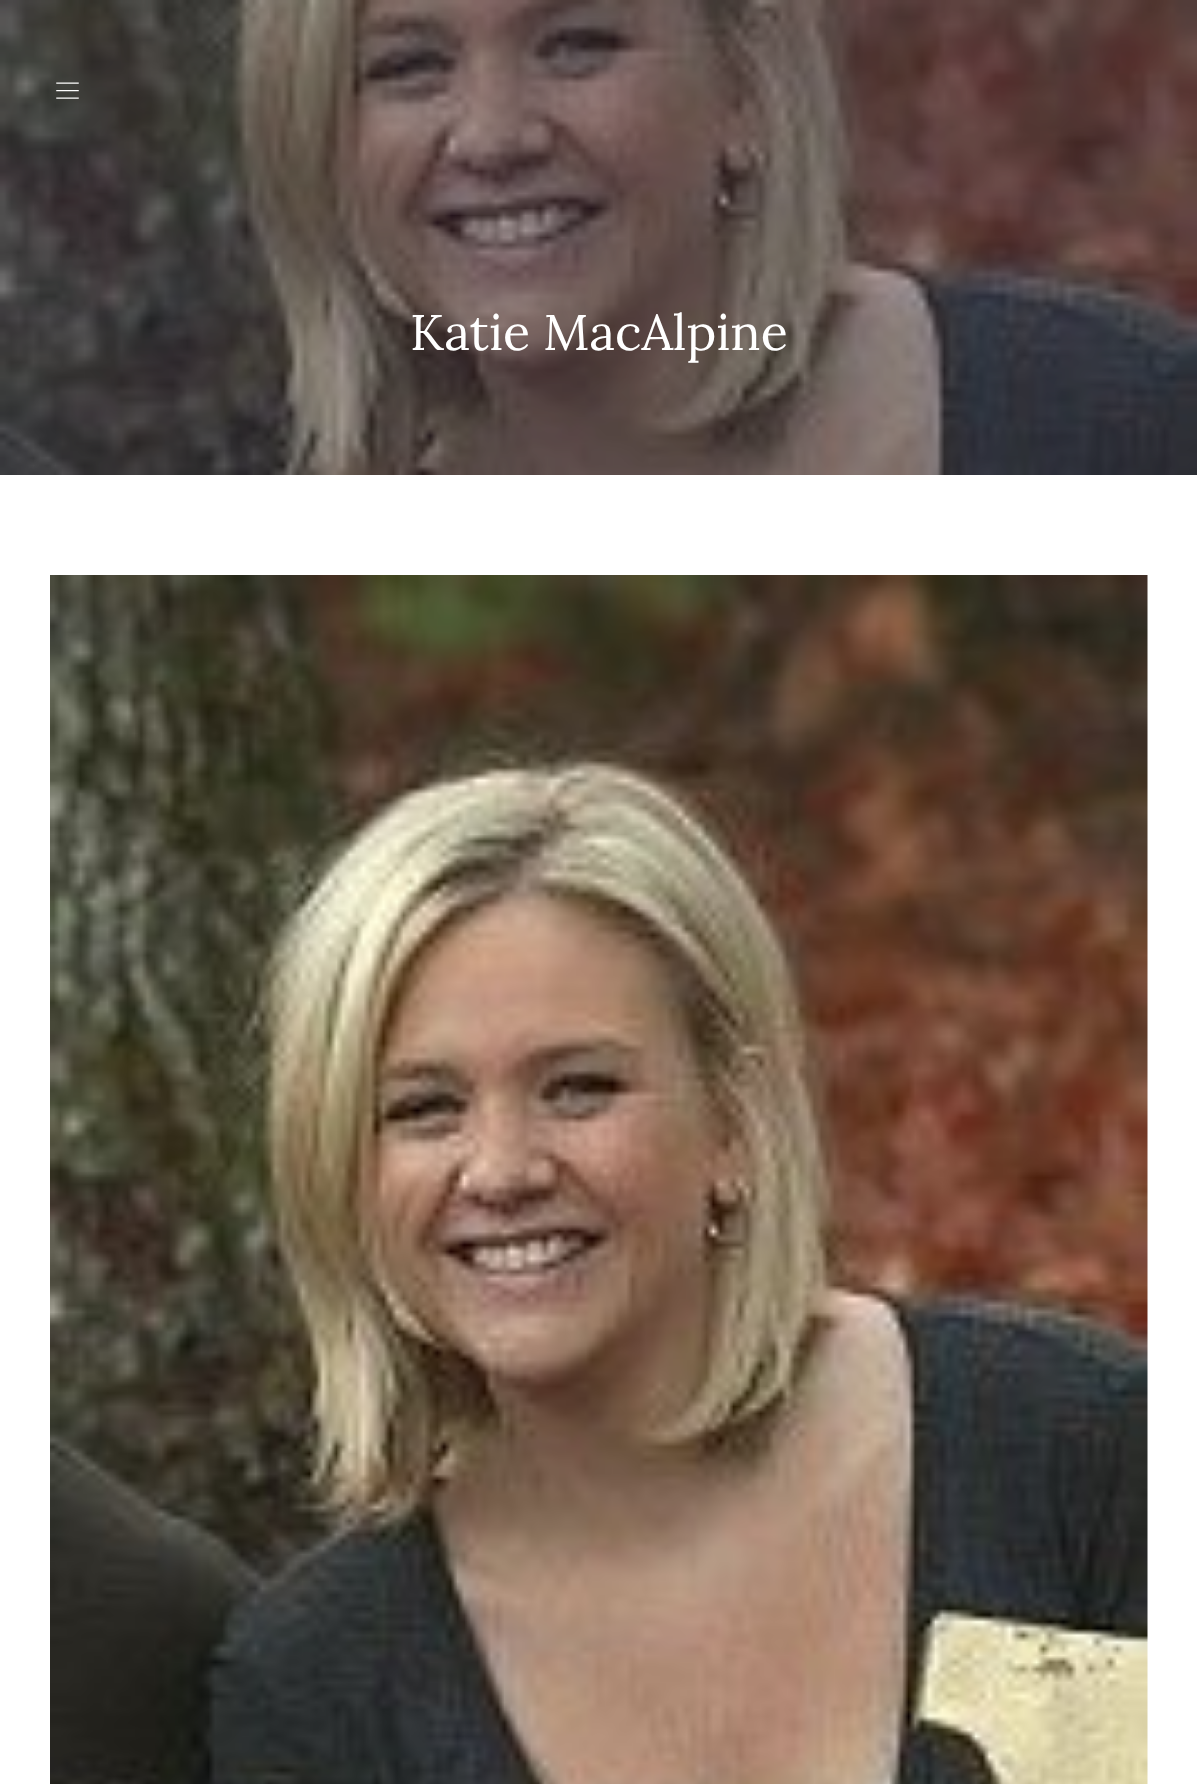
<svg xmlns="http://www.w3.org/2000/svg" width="1197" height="1784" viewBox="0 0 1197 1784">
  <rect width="100%" height="100%" fill="#fff"/>
  <image x="0" y="0" width="1197" height="475" href="img/2.png"/>
  <image x="56" y="82" width="23" height="17" href="img/1.png"/>
  <image x="50" y="575" width="1098" height="1209" href="img/3.png"/>
  <text x="410" y="350" font-family="Lora" font-size="50" fill="#fff">Katie MacAlpine</text>
</svg>
